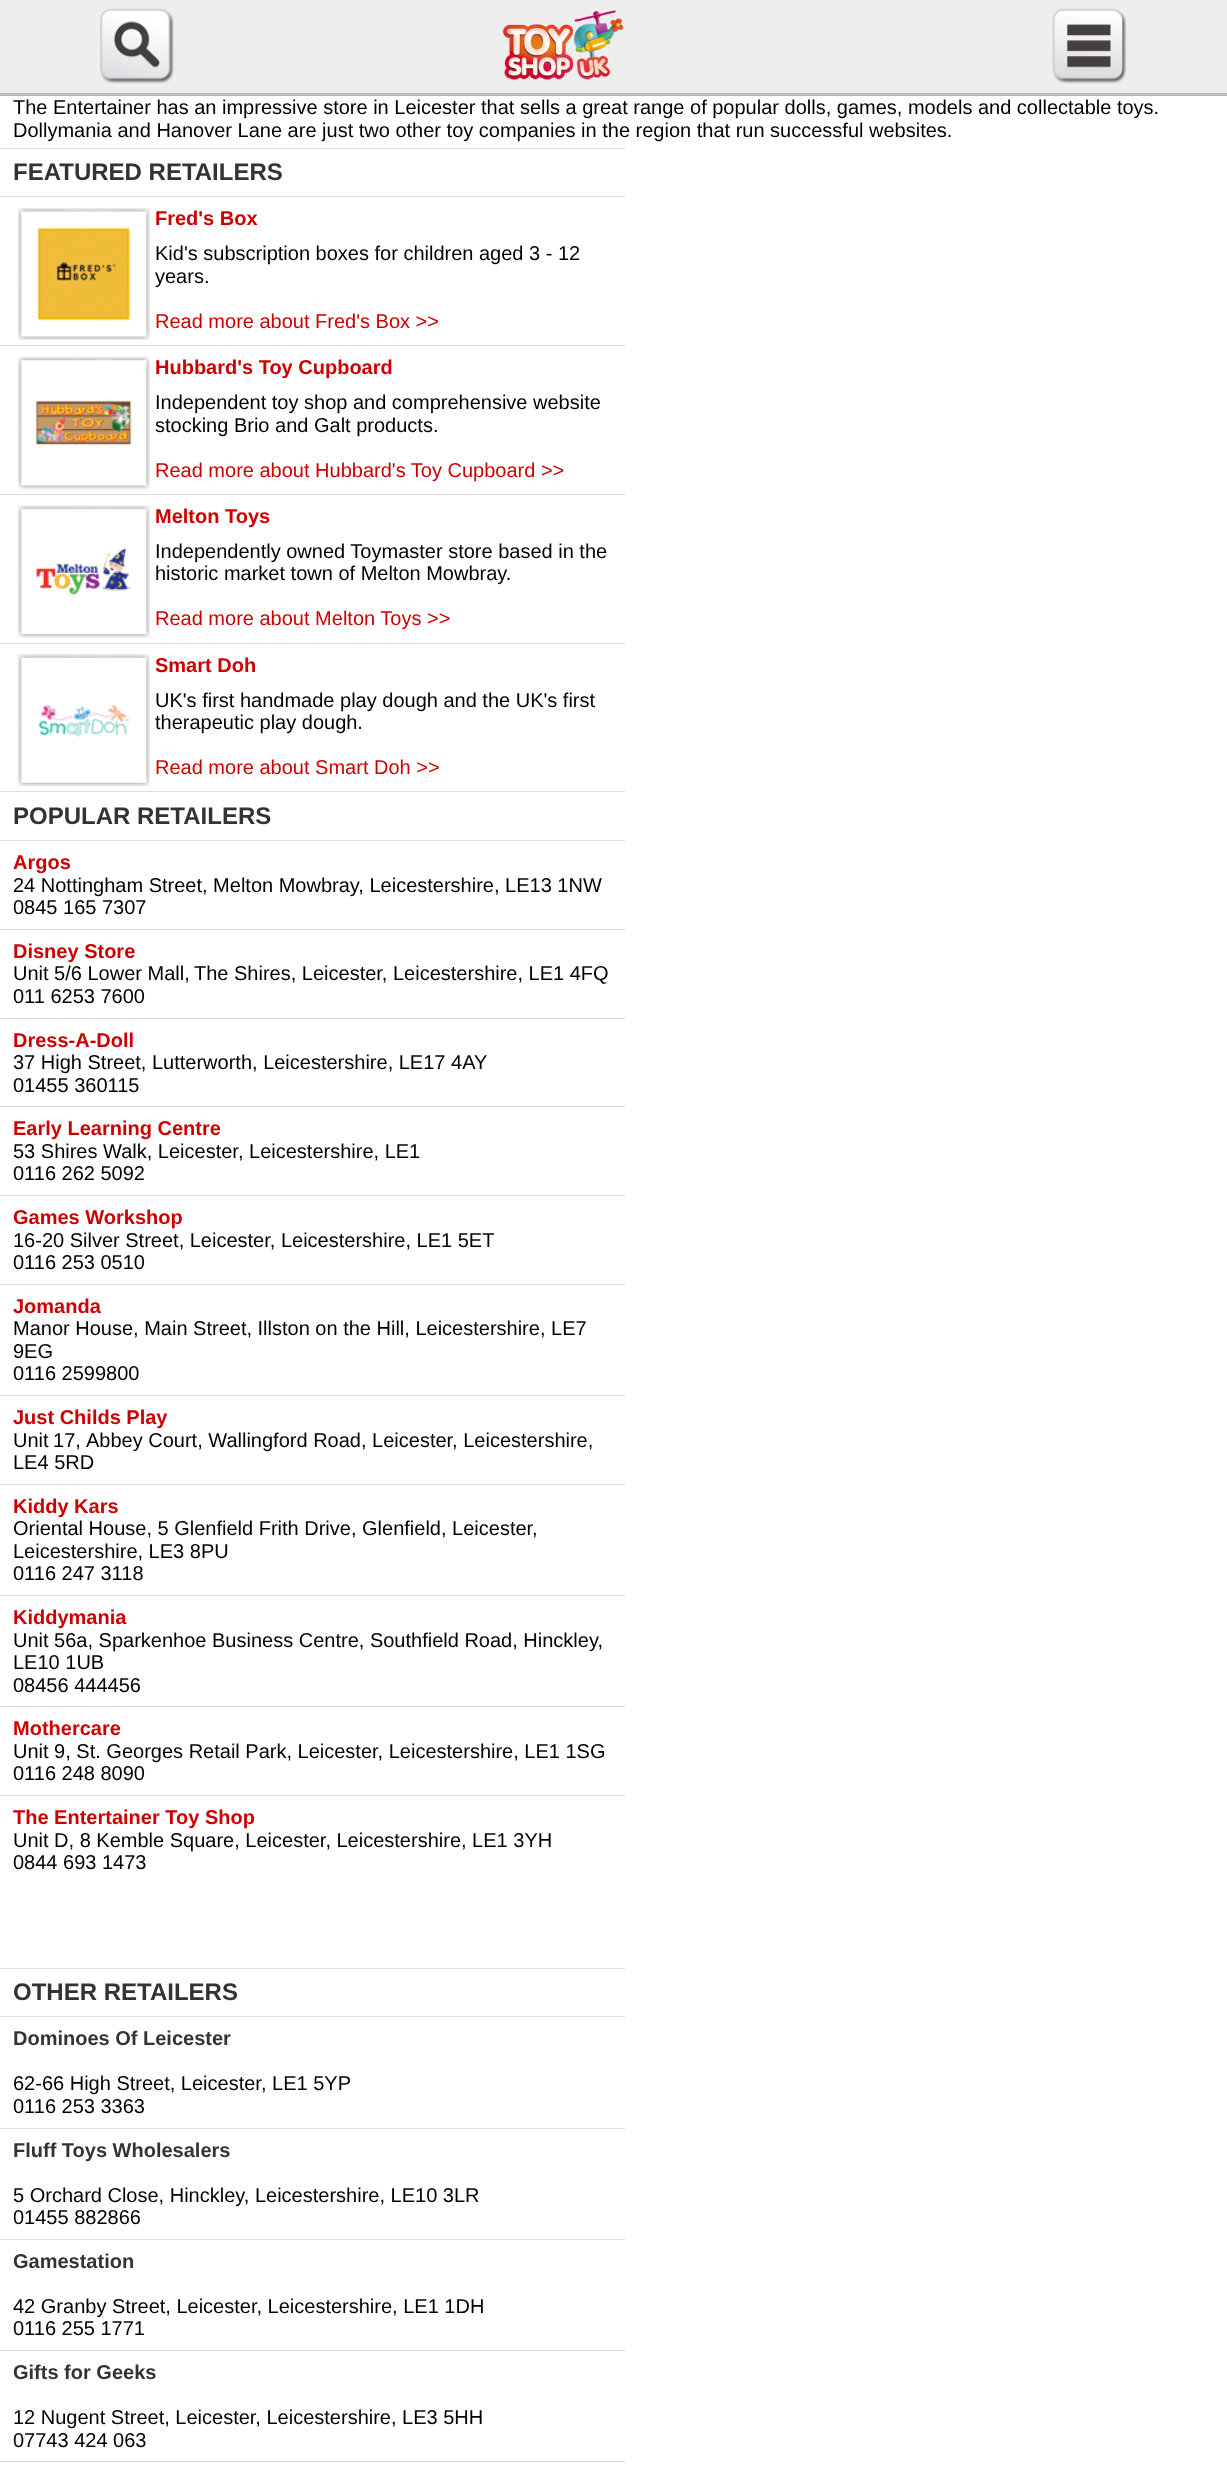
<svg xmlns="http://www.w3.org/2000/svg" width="1227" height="2479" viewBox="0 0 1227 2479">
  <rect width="100%" height="100%" fill="#fff"/>
  <path d="M0 0h1227v93H0z" fill="#eee"/>
  <path d="M0 93h1227v3H0z" fill="#bbb"/>
  <image x="100" y="8" width="74" height="76" href="img/1.png"/>
  <image x="502" y="10" width="122" height="70" href="img/2.png"/>
  <image x="1052" y="8" width="75" height="76" href="img/3.png"/>
  <path d="M0 148h625v1H0z" fill="#ddd"/>
  <path d="M0 196h625v1H0z" fill="#ddd"/>
  <image x="17" y="208" width="133" height="132" href="img/4.png"/>
  <path d="M0 345h625v1H0z" fill="#ddd"/>
  <image x="17" y="356" width="133" height="133" href="img/5.png"/>
  <path d="M0 494h625v1H0z" fill="#ddd"/>
  <image x="17" y="505" width="133" height="133" href="img/6.png"/>
  <path d="M0 643h625v1H0z" fill="#ddd"/>
  <image x="17" y="654" width="133" height="133" href="img/7.png"/>
  <path d="M0 791h625v1H0z" fill="#ddd"/>
  <path d="M0 840h625v1H0z" fill="#ddd"/>
  <path d="M0 929h625v1H0z" fill="#ddd"/>
  <path d="M0 1018h625v1H0z" fill="#ddd"/>
  <path d="M0 1106h625v1H0z" fill="#ddd"/>
  <path d="M0 1195h625v1H0z" fill="#ddd"/>
  <path d="M0 1284h625v1H0z" fill="#ddd"/>
  <path d="M0 1395h625v1H0z" fill="#ddd"/>
  <path d="M0 1484h625v1H0z" fill="#ddd"/>
  <path d="M0 1595h625v1H0z" fill="#ddd"/>
  <path d="M0 1706h625v1H0z" fill="#ddd"/>
  <path d="M0 1795h625v1H0z" fill="#ddd"/>
  <path d="M0 1968h625v1H0z" fill="#ddd"/>
  <path d="M0 2016h625v1H0z" fill="#ddd"/>
  <path d="M0 2128h625v1H0z" fill="#ddd"/>
  <path d="M0 2239h625v1H0z" fill="#ddd"/>
  <path d="M0 2350h625v1H0z" fill="#ddd"/>
  <path d="M0 2461h625v1H0z" fill="#ddd"/>
  <g font-family="Liberation Sans" font-size="20" fill="#000">
    <text x="13" y="114">The Entertainer has an impressive store in Leicester that sells a great range of popular dolls, games, models and collectable toys.</text>
    <text x="13" y="137">Dollymania and Hanover Lane are just two other toy companies in the region that run successful websites.</text>
  </g>
  <text x="13" y="180" font-family="Liberation Sans" font-size="24" font-weight="bold" fill="#333">FEATURED RETAILERS</text>
  <text x="155" y="225" font-family="Liberation Sans" font-size="20" font-weight="bold" fill="#c00">Fred's Box</text>
  <g font-family="Liberation Sans" font-size="20" fill="#000">
    <text x="155" y="260">Kid's subscription boxes for children aged 3 - 12</text>
    <text x="155" y="283">years.</text>
  </g>
  <text x="155" y="328" font-family="Liberation Sans" font-size="20" fill="#c00">Read more about Fred's Box &gt;&gt;</text>
  <text x="155" y="374" font-family="Liberation Sans" font-size="20" font-weight="bold" fill="#c00">Hubbard's Toy Cupboard</text>
  <g font-family="Liberation Sans" font-size="20" fill="#000">
    <text x="155" y="409">Independent toy shop and comprehensive website</text>
    <text x="155" y="432">stocking Brio and Galt products.</text>
  </g>
  <text x="155" y="477" font-family="Liberation Sans" font-size="20" fill="#c00">Read more about Hubbard's Toy Cupboard &gt;&gt;</text>
  <text x="155" y="523" font-family="Liberation Sans" font-size="20" font-weight="bold" fill="#c00">Melton Toys</text>
  <g font-family="Liberation Sans" font-size="20" fill="#000">
    <text x="155" y="558">Independently owned Toymaster store based in the</text>
    <text x="155" y="580">historic market town of Melton Mowbray.</text>
  </g>
  <text x="155" y="625" font-family="Liberation Sans" font-size="20" fill="#c00">Read more about Melton Toys &gt;&gt;</text>
  <text x="155" y="672" font-family="Liberation Sans" font-size="20" font-weight="bold" fill="#c00">Smart Doh</text>
  <g font-family="Liberation Sans" font-size="20" fill="#000">
    <text x="155" y="707">UK's first handmade play dough and the UK's first</text>
    <text x="155" y="729">therapeutic play dough.</text>
  </g>
  <text x="155" y="774" font-family="Liberation Sans" font-size="20" fill="#c00">Read more about Smart Doh &gt;&gt;</text>
  <text x="13" y="824" font-family="Liberation Sans" font-size="24" font-weight="bold" fill="#333">POPULAR RETAILERS</text>
  <text x="13" y="869" font-family="Liberation Sans" font-size="20" font-weight="bold" fill="#c00">Argos</text>
  <g font-family="Liberation Sans" font-size="20" fill="#000">
    <text x="13" y="892">24 Nottingham Street, Melton Mowbray, Leicestershire, LE13 1NW</text>
    <text x="13" y="914">0845 165 7307</text>
  </g>
  <text x="13" y="958" font-family="Liberation Sans" font-size="20" font-weight="bold" fill="#c00">Disney Store</text>
  <g font-family="Liberation Sans" font-size="20" fill="#000">
    <text x="13" y="980">Unit 5/6 Lower Mall,</text>
    <text x="194" y="980">The Shires, Leicester, Leicestershire, LE1 4FQ</text>
    <text x="13" y="1003">011 6253 7600</text>
  </g>
  <text x="13" y="1047" font-family="Liberation Sans" font-size="20" font-weight="bold" fill="#c00">Dress-A-Doll</text>
  <g font-family="Liberation Sans" font-size="20" fill="#000">
    <text x="13" y="1069">37 High Street, Lutterworth, Leicestershire, LE17 4AY</text>
    <text x="13" y="1092">01455 360115</text>
  </g>
  <text x="13" y="1135" font-family="Liberation Sans" font-size="20" font-weight="bold" fill="#c00">Early Learning Centre</text>
  <g font-family="Liberation Sans" font-size="20" fill="#000">
    <text x="13" y="1158">53 Shires Walk, Leicester, Leicestershire, LE1</text>
    <text x="13" y="1180">0116 262 5092</text>
  </g>
  <text x="13" y="1224" font-family="Liberation Sans" font-size="20" font-weight="bold" fill="#c00">Games Workshop</text>
  <g font-family="Liberation Sans" font-size="20" fill="#000">
    <text x="13" y="1247">16-20 Silver Street, Leicester, Leicestershire, LE1 5ET</text>
    <text x="13" y="1269">0116 253 0510</text>
  </g>
  <text x="13" y="1313" font-family="Liberation Sans" font-size="20" font-weight="bold" fill="#c00">Jomanda</text>
  <g font-family="Liberation Sans" font-size="20" fill="#000">
    <text x="13" y="1335">Manor House, Main Street, Illston on the Hill, Leicestershire, LE7</text>
    <text x="13" y="1358">9EG</text>
    <text x="13" y="1380">0116 2599800</text>
  </g>
  <text x="13" y="1424" font-family="Liberation Sans" font-size="20" font-weight="bold" fill="#c00">Just Childs Play</text>
  <g font-family="Liberation Sans" font-size="20" fill="#000">
    <text x="13" y="1447" word-spacing="-1">Unit 17,</text>
    <text x="86" y="1447">Abbey Court, Wallingford Road, Leicester, Leicestershire,</text>
    <text x="13" y="1469">LE4 5RD</text>
  </g>
  <text x="13" y="1513" font-family="Liberation Sans" font-size="20" font-weight="bold" fill="#c00">Kiddy Kars</text>
  <g font-family="Liberation Sans" font-size="20" fill="#000">
    <text x="13" y="1535">Oriental House, 5 Glenfield Frith Drive, Glenfield, Leicester,</text>
    <text x="13" y="1558">Leicestershire, LE3 8PU</text>
    <text x="13" y="1580">0116 247 3118</text>
  </g>
  <text x="13" y="1624" font-family="Liberation Sans" font-size="20" font-weight="bold" fill="#c00">Kiddymania</text>
  <g font-family="Liberation Sans" font-size="20" fill="#000">
    <text x="13" y="1647">Unit 56a, Sparkenhoe Business Centre, Southfield Road, Hinckley,</text>
    <text x="13" y="1669">LE10 1UB</text>
    <text x="13" y="1692">08456 444456</text>
  </g>
  <text x="13" y="1735" font-family="Liberation Sans" font-size="20" font-weight="bold" fill="#c00">Mothercare</text>
  <g font-family="Liberation Sans" font-size="20" fill="#000">
    <text x="13" y="1758">Unit 9, St. Georges Retail Park, Leicester, Leicestershire, LE1 1SG</text>
    <text x="13" y="1780">0116 248 8090</text>
  </g>
  <text x="13" y="1824" font-family="Liberation Sans" font-size="20" font-weight="bold" fill="#c00">The Entertainer Toy Shop</text>
  <g font-family="Liberation Sans" font-size="20" fill="#000">
    <text x="13" y="1847">Unit D, 8 Kemble Square, Leicester, Leicestershire, LE1 3YH</text>
    <text x="13" y="1869">0844 693 1473</text>
  </g>
  <text x="13" y="2000" font-family="Liberation Sans" font-size="24" font-weight="bold" fill="#333">OTHER RETAILERS</text>
  <text x="13" y="2045" font-family="Liberation Sans" font-size="20" font-weight="bold" fill="#333">Dominoes Of Leicester</text>
  <g font-family="Liberation Sans" font-size="20" fill="#000">
    <text x="13" y="2090">62-66 High Street, Leicester, LE1 5YP</text>
    <text x="13" y="2113">0116 253 3363</text>
  </g>
  <text x="13" y="2157" font-family="Liberation Sans" font-size="20" font-weight="bold" fill="#333">Fluff Toys Wholesalers</text>
  <g font-family="Liberation Sans" font-size="20" fill="#000">
    <text x="13" y="2202">5 Orchard Close, Hinckley, Leicestershire, LE10 3LR</text>
    <text x="13" y="2224">01455 882866</text>
  </g>
  <text x="13" y="2268" font-family="Liberation Sans" font-size="20" font-weight="bold" fill="#333">Gamestation</text>
  <g font-family="Liberation Sans" font-size="20" fill="#000">
    <text x="13" y="2313">42 Granby Street, Leicester, Leicestershire, LE1 1DH</text>
    <text x="13" y="2335">0116 255 1771</text>
  </g>
  <text x="13" y="2379" font-family="Liberation Sans" font-size="20" font-weight="bold" fill="#333">Gifts for Geeks</text>
  <g font-family="Liberation Sans" font-size="20" fill="#000">
    <text x="13" y="2424">12 Nugent Street, Leicester, Leicestershire, LE3 5HH</text>
    <text x="13" y="2447">07743 424 063</text>
  </g>
</svg>
